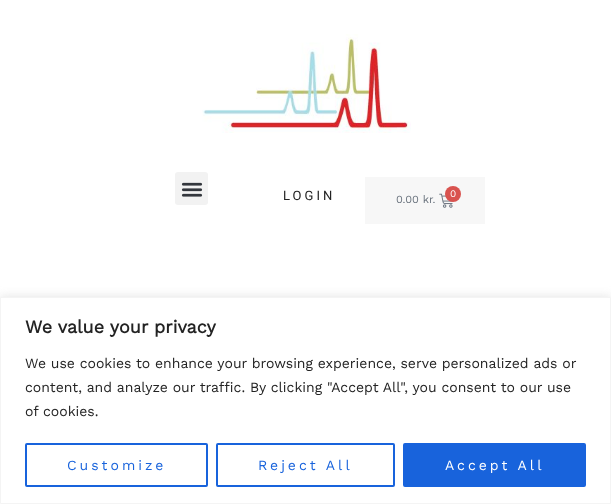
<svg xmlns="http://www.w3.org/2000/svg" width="611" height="504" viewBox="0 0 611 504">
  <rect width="100%" height="100%" fill="#fff"/>
  <image x="202" y="34" width="209" height="99" href="img/1.png"/>
  <rect x="175" y="172" width="33" height="33" rx="3" fill="#f2f2f2"/>
  <image x="181" y="182" width="22" height="15" href="img/2.png"/>
  <path d="M365 177h120v47H365z" fill="#f7f7f7"/>
  <image x="439" y="193" width="14" height="15" href="img/3.png"/>
  <circle cx="453" cy="194" r="8" fill="#d9534f"/>
  <path d="M0 296h611v207H0z" fill="#acabab4d" filter="blur(5px)"/>
  <path d="M0.5 297.5h610v206H0.5z" fill="#fff" stroke="#f4f4f4"/>
  <rect x="26" y="444" width="181" height="42" rx="1" fill="none" stroke="#1863dc" stroke-width="2"/>
  <rect x="217" y="444" width="177" height="42" rx="1" fill="none" stroke="#1863dc" stroke-width="2"/>
  <rect x="404" y="444" width="181" height="42" rx="1" fill="#1863dc" stroke="#1863dc" stroke-width="2"/>
  <text x="283" y="200" font-family="Roboto" font-size="13" letter-spacing="3" fill="#232323">LOGIN</text>
  <text x="450" y="197" font-family="Work Sans" font-size="10" fill="#fff">0</text>
  <text x="396" y="203" font-family="Work Sans" font-size="11" fill="#69727d">0.00 kr.</text>
  <text x="25" y="333" font-family="Work Sans" font-size="18" font-weight="bold" fill="#232323">We value your privacy</text>
  <g font-family="Work Sans" font-size="14" fill="#232323">
    <text x="25" y="368">We use cookies to enhance your browsing experience, serve personalized ads or</text>
    <text x="25" y="392">content, and analyze our traffic. By clicking "Accept All", you consent to our use</text>
    <text x="25" y="416">of cookies.</text>
  </g>
  <g font-family="Work Sans" font-size="14" letter-spacing="3" fill="#1863dc">
    <text x="67" y="470">Customize</text>
    <text x="258" y="470">Reject All</text>
  </g>
  <text x="445" y="470" font-family="Work Sans" font-size="14" letter-spacing="3" fill="#fff">Accept All</text>
</svg>
